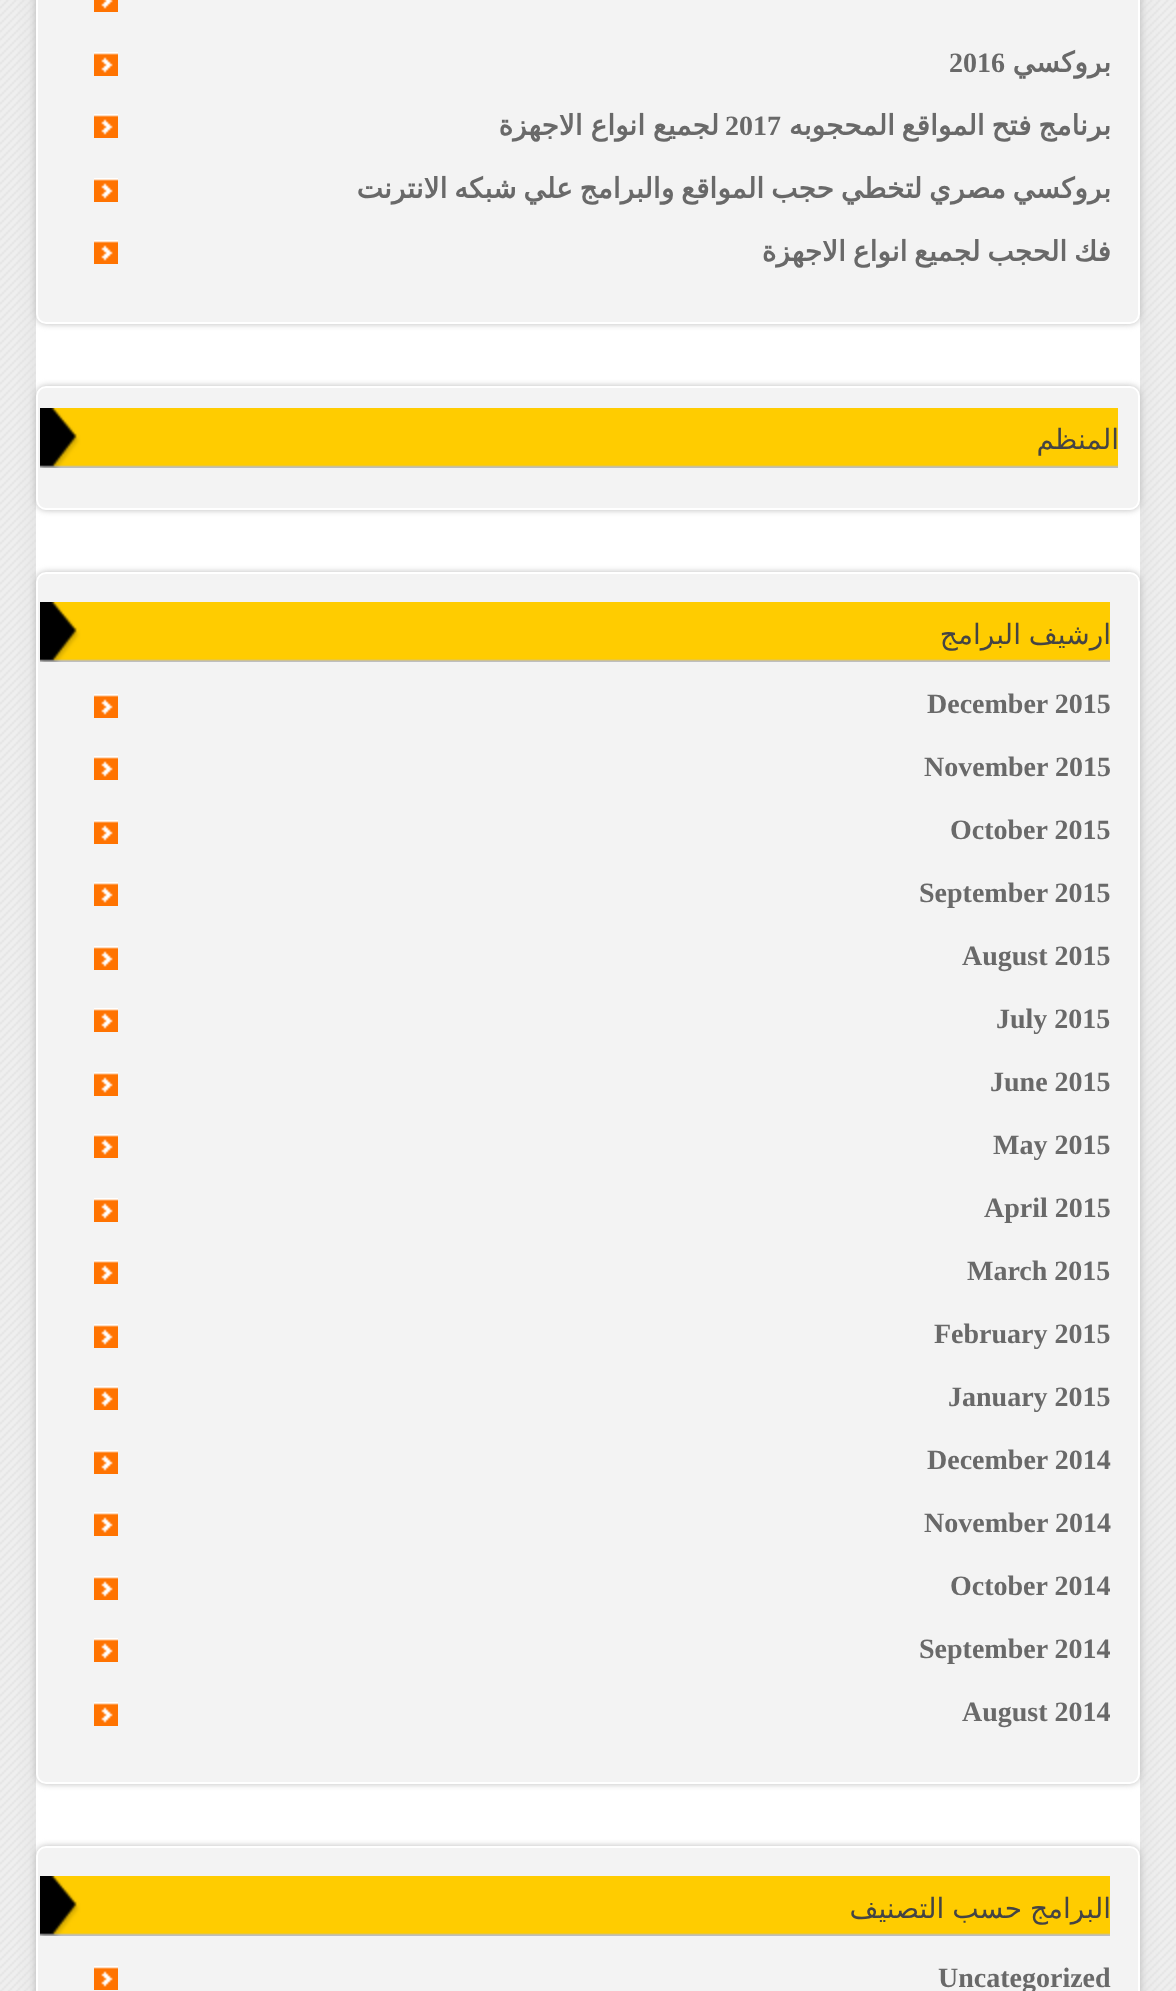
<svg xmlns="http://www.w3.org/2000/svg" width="1176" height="1991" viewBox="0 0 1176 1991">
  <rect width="100%" height="100%" fill="#efefef"/>
  <image x="0" y="0" width="1176" height="1991" href="img/1.png"/>
  <rect x="36" y="-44" width="1104" height="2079" rx="14" fill="#ddd" filter="blur(10px)"/>
  <path d="M36 314h1104v1542H36z" fill="#fff"/>
  <rect x="36" y="-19" width="1104" height="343" rx="10" fill="#bababa" filter="blur(3px)"/>
  <rect x="37" y="-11" width="1102" height="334" rx="9" fill="#f3f3f3" stroke="#fff" stroke-width="2"/>
  <image x="94" y="0" width="24" height="12" href="img/2.png"/>
  <image x="94" y="52" width="24" height="24" href="img/3.png"/>
  <image x="94" y="114" width="24" height="24" href="img/3.png"/>
  <image x="94" y="178" width="24" height="24" href="img/3.png"/>
  <image x="94" y="240" width="24" height="24" href="img/3.png"/>
  <rect x="36" y="386" width="1104" height="124" rx="10" fill="#bababa" filter="blur(3px)"/>
  <rect x="37" y="387" width="1102" height="122" rx="9" fill="#f3f3f3" stroke="#fff" stroke-width="2"/>
  <image x="40" y="408" width="1078" height="60" href="img/4.png"/>
  <rect x="36" y="572" width="1104" height="1212" rx="10" fill="#bababa" filter="blur(3px)"/>
  <rect x="37" y="573" width="1102" height="1210" rx="9" fill="#f3f3f3" stroke="#fff" stroke-width="2"/>
  <image x="40" y="602" width="1070" height="60" href="img/5.png"/>
  <image x="94" y="694" width="24" height="24" href="img/3.png"/>
  <image x="94" y="756" width="24" height="24" href="img/3.png"/>
  <image x="94" y="820" width="24" height="24" href="img/3.png"/>
  <image x="94" y="882" width="24" height="24" href="img/3.png"/>
  <image x="94" y="946" width="24" height="24" href="img/3.png"/>
  <image x="94" y="1008" width="24" height="24" href="img/3.png"/>
  <image x="94" y="1072" width="24" height="24" href="img/3.png"/>
  <image x="94" y="1134" width="24" height="24" href="img/3.png"/>
  <image x="94" y="1198" width="24" height="24" href="img/3.png"/>
  <image x="94" y="1260" width="24" height="24" href="img/3.png"/>
  <image x="94" y="1324" width="24" height="24" href="img/3.png"/>
  <image x="94" y="1386" width="24" height="24" href="img/3.png"/>
  <image x="94" y="1450" width="24" height="24" href="img/3.png"/>
  <image x="94" y="1512" width="24" height="24" href="img/3.png"/>
  <image x="94" y="1576" width="24" height="24" href="img/3.png"/>
  <image x="94" y="1638" width="24" height="24" href="img/3.png"/>
  <image x="94" y="1702" width="24" height="24" href="img/3.png"/>
  <rect x="36" y="1846" width="1104" height="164" rx="10" fill="#bababa" filter="blur(3px)"/>
  <rect x="37" y="1847" width="1102" height="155" rx="9" fill="#f3f3f3" stroke="#fff" stroke-width="2"/>
  <image x="40" y="1876" width="1070" height="60" href="img/5.png"/>
  <image x="94" y="1966" width="24" height="24" href="img/3.png"/>
  <text x="949" y="72" font-family="Liberation Serif" font-size="28" font-weight="bold" fill="#696969">2016</text>
  <g font-family="DejaVu Sans" font-size="28" font-weight="bold" direction="rtl" fill="#696969">
    <text x="1111" y="72">بروكسي</text>
    <text x="719" y="135" word-spacing="-1">لجميع انواع الاجهزة</text>
  </g>
  <text x="725" y="135" font-family="Liberation Serif" font-size="28" font-weight="bold" fill="#696969">2017</text>
  <g font-family="DejaVu Sans" font-size="28" font-weight="bold" direction="rtl" fill="#696969">
    <text x="1111" y="135" word-spacing="-2">برنامج فتح المواقع المحجوبه</text>
    <text x="1111" y="198" word-spacing="-2">بروكسي مصري لتخطي حجب المواقع والبرامج علي شبكه الانترنت</text>
    <text x="1111" y="261" word-spacing="-2">فك الحجب لجميع انواع الاجهزة</text>
  </g>
  <g font-family="DejaVu Sans" font-size="28" direction="rtl" fill="#444">
    <text x="1119" y="449">المنظم</text>
    <text x="1111" y="644" word-spacing="-1">ارشيف البرامج</text>
  </g>
  <g font-family="Liberation Serif" font-size="28" font-weight="bold" fill="#696969">
    <text x="927" y="713">December 2015</text>
    <text x="924" y="776">November 2015</text>
    <text x="950" y="839">October 2015</text>
    <text x="919" y="902">September 2015</text>
    <text x="962" y="965">August 2015</text>
    <text x="996" y="1028">July 2015</text>
    <text x="990" y="1091">June 2015</text>
    <text x="993" y="1154">May 2015</text>
    <text x="984" y="1217">April 2015</text>
    <text x="967" y="1280">March 2015</text>
    <text x="934" y="1343">February 2015</text>
    <text x="948" y="1406">January 2015</text>
    <text x="927" y="1469">December 2014</text>
    <text x="924" y="1532">November 2014</text>
    <text x="950" y="1595">October 2014</text>
    <text x="919" y="1658">September 2014</text>
    <text x="962" y="1721">August 2014</text>
  </g>
  <text x="1111" y="1918" word-spacing="-1" font-family="DejaVu Sans" font-size="28" direction="rtl" fill="#444">البرامج حسب التصنيف</text>
  <text x="938" y="1987" font-family="Liberation Serif" font-size="28" font-weight="bold" fill="#696969">Uncategorized</text>
</svg>
